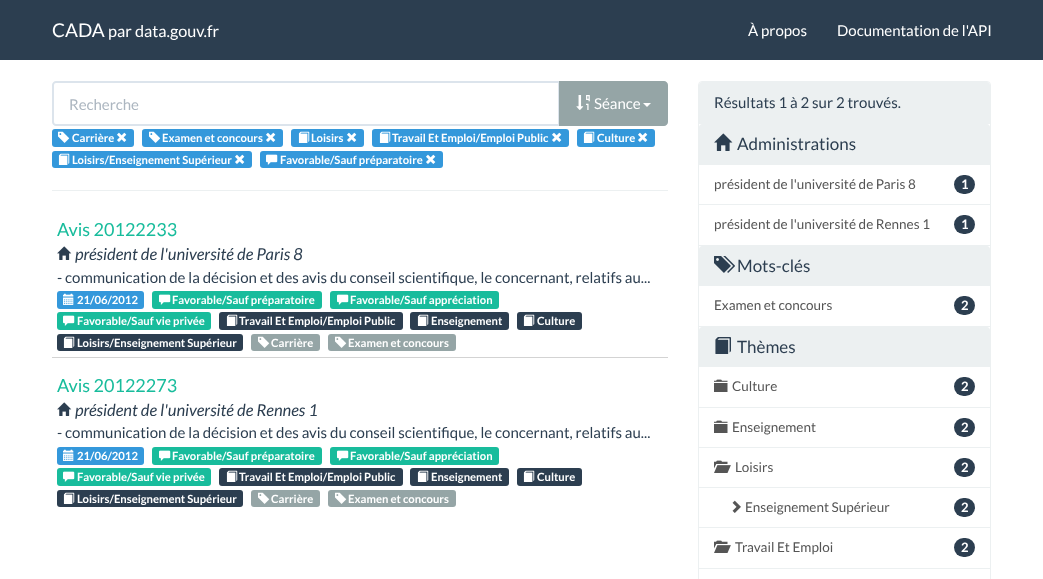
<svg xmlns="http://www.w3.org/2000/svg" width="1043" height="579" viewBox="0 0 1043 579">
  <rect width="100%" height="100%" fill="#fff"/>
  <path d="M0 0h1043v60H0z" fill="#2c3e50"/>
  <path d="M56 82H559V125H56C54.5 125 53 123.5 53 122V85C53 83.5 54.5 82 56 82Z" fill="none" stroke="#dce4ec" stroke-width="2"/>
  <path d="M560 82H664C665.5 82 667 83.5 667 85V122C667 123.5 665.5 125 664 125H560Z" fill="#95a5a6" stroke="#95a5a6" stroke-width="2"/>
  <image x="576" y="95" width="14" height="15" href="img/1.png"/>
  <path d="M643 103H651L647 107Z" fill="#fff"/>
  <rect x="52" y="129" width="82" height="18" rx="3" fill="#3498db"/>
  <image x="58" y="131" width="12" height="12" href="img/2.png"/>
  <image x="117" y="132" width="10" height="10" href="img/3.png"/>
  <rect x="142" y="129" width="141" height="18" rx="3" fill="#3498db"/>
  <image x="149" y="131" width="12" height="12" href="img/2.png"/>
  <image x="266" y="132" width="10" height="10" href="img/3.png"/>
  <rect x="291" y="129" width="73" height="18" rx="3" fill="#3498db"/>
  <image x="298" y="131" width="12" height="12" href="img/4.png"/>
  <image x="347" y="132" width="10" height="10" href="img/3.png"/>
  <rect x="372" y="129" width="197" height="18" rx="3" fill="#3498db"/>
  <image x="379" y="131" width="12" height="12" href="img/4.png"/>
  <image x="552" y="132" width="10" height="10" href="img/3.png"/>
  <rect x="577" y="129" width="78" height="18" rx="3" fill="#3498db"/>
  <image x="583" y="131" width="12" height="12" href="img/4.png"/>
  <image x="638" y="132" width="10" height="10" href="img/3.png"/>
  <rect x="52" y="151" width="200" height="17" rx="3" fill="#3498db"/>
  <image x="58" y="153" width="12" height="12" href="img/4.png"/>
  <image x="235" y="154" width="10" height="10" href="img/3.png"/>
  <rect x="260" y="151" width="183" height="17" rx="3" fill="#3498db"/>
  <image x="266" y="154" width="12" height="11" href="img/5.png"/>
  <image x="426" y="154" width="10" height="10" href="img/3.png"/>
  <path d="M52 190h616v1H52z" fill="#ecf0f1"/>
  <path d="M52 357h616v1H52z" fill="#d3d3d3"/>
  <image x="57" y="246" width="15" height="14" href="img/6.png"/>
  <rect x="57" y="291" width="87" height="18" rx="3" fill="#3498db"/>
  <image x="63" y="293" width="11" height="12" href="img/7.png"/>
  <rect x="152" y="291" width="170" height="18" rx="3" fill="#18bc9c"/>
  <image x="159" y="294" width="12" height="11" href="img/8.png"/>
  <rect x="330" y="291" width="169" height="18" rx="3" fill="#18bc9c"/>
  <image x="337" y="294" width="12" height="11" href="img/8.png"/>
  <rect x="57" y="312" width="154" height="18" rx="3" fill="#18bc9c"/>
  <image x="63" y="315" width="12" height="11" href="img/8.png"/>
  <rect x="219" y="312" width="184" height="18" rx="3" fill="#2c3e50"/>
  <image x="226" y="314" width="12" height="12" href="img/9.png"/>
  <rect x="410" y="312" width="99" height="18" rx="3" fill="#2c3e50"/>
  <image x="417" y="314" width="12" height="12" href="img/9.png"/>
  <rect x="517" y="312" width="65" height="18" rx="3" fill="#2c3e50"/>
  <image x="523" y="314" width="12" height="12" href="img/9.png"/>
  <rect x="57" y="334" width="186" height="17" rx="3" fill="#2c3e50"/>
  <image x="63" y="336" width="12" height="12" href="img/9.png"/>
  <rect x="251" y="334" width="69" height="17" rx="3" fill="#95a5a6"/>
  <image x="258" y="336" width="12" height="12" href="img/10.png"/>
  <rect x="328" y="334" width="128" height="17" rx="3" fill="#95a5a6"/>
  <image x="335" y="336" width="12" height="12" href="img/10.png"/>
  <image x="57" y="402" width="15" height="14" href="img/6.png"/>
  <rect x="57" y="447" width="87" height="18" rx="3" fill="#3498db"/>
  <image x="63" y="449" width="11" height="12" href="img/7.png"/>
  <rect x="152" y="447" width="170" height="18" rx="3" fill="#18bc9c"/>
  <image x="159" y="450" width="12" height="11" href="img/8.png"/>
  <rect x="330" y="447" width="169" height="18" rx="3" fill="#18bc9c"/>
  <image x="337" y="450" width="12" height="11" href="img/8.png"/>
  <rect x="57" y="468" width="154" height="18" rx="3" fill="#18bc9c"/>
  <image x="63" y="471" width="12" height="11" href="img/8.png"/>
  <rect x="219" y="468" width="184" height="18" rx="3" fill="#2c3e50"/>
  <image x="226" y="470" width="12" height="12" href="img/9.png"/>
  <rect x="410" y="468" width="99" height="18" rx="3" fill="#2c3e50"/>
  <image x="417" y="470" width="12" height="12" href="img/9.png"/>
  <rect x="517" y="468" width="65" height="18" rx="3" fill="#2c3e50"/>
  <image x="523" y="470" width="12" height="12" href="img/9.png"/>
  <rect x="57" y="490" width="186" height="17" rx="3" fill="#2c3e50"/>
  <image x="63" y="492" width="12" height="12" href="img/9.png"/>
  <rect x="251" y="490" width="69" height="17" rx="3" fill="#95a5a6"/>
  <image x="258" y="492" width="12" height="12" href="img/10.png"/>
  <rect x="328" y="490" width="128" height="17" rx="3" fill="#95a5a6"/>
  <image x="335" y="492" width="12" height="12" href="img/10.png"/>
  <rect x="698.5" y="81.5" width="292" height="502" rx="3.5" fill="none" stroke="#ecf0f1"/>
  <path d="M702 82H987C988.5 82 990 83.5 990 85V124H699V85C699 83.5 700.5 82 702 82Z" fill="#ecf0f1"/>
  <path d="M702 124H987C988.5 124 990 125.5 990 127V165H699V127C699 125.5 700.5 124 702 124Z" fill="#ecf0f1"/>
  <image x="714" y="133" width="19" height="18" href="img/11.png"/>
  <path d="M699 204h291v1H699z" fill="#ecf0f1"/>
  <rect x="954" y="175" width="21" height="19" rx="9.5" fill="#2c3e50"/>
  <path d="M699 245h291v1H699z" fill="#ecf0f1"/>
  <rect x="954" y="215" width="21" height="19" rx="9.5" fill="#2c3e50"/>
  <path d="M702 246H987C988.5 246 990 247.5 990 249V286H699V249C699 247.5 700.5 246 702 246Z" fill="#ecf0f1"/>
  <image x="714" y="256" width="21" height="17" href="img/12.png"/>
  <path d="M699 326h291v1H699z" fill="#ecf0f1"/>
  <rect x="954" y="296" width="21" height="19" rx="9.5" fill="#2c3e50"/>
  <path d="M702 327H987C988.5 327 990 328.5 990 330V367H699V330C699 328.5 700.5 327 702 327Z" fill="#ecf0f1"/>
  <image x="715" y="337" width="16" height="17" href="img/13.png"/>
  <path d="M699 407h291v1H699z" fill="#ecf0f1"/>
  <image x="714" y="379" width="14" height="13" href="img/14.png"/>
  <rect x="954" y="377" width="21" height="19" rx="9.5" fill="#2c3e50"/>
  <path d="M699 447h291v1H699z" fill="#ecf0f1"/>
  <image x="714" y="420" width="14" height="13" href="img/14.png"/>
  <rect x="954" y="418" width="21" height="19" rx="9.5" fill="#2c3e50"/>
  <path d="M699 487h291v1H699z" fill="#ecf0f1"/>
  <image x="714" y="460" width="17" height="13" href="img/15.png"/>
  <rect x="954" y="458" width="21" height="19" rx="9.5" fill="#2c3e50"/>
  <path d="M699 527h291v1H699z" fill="#ecf0f1"/>
  <image x="732" y="500" width="9" height="13" href="img/16.png"/>
  <rect x="954" y="498" width="21" height="19" rx="9.5" fill="#2c3e50"/>
  <path d="M699 568h291v1H699z" fill="#ecf0f1"/>
  <image x="714" y="540" width="17" height="13" href="img/15.png"/>
  <rect x="954" y="538" width="21" height="19" rx="9.5" fill="#2c3e50"/>
  <text x="52" y="37" font-family="Lato" font-size="19" fill="#fff">CADA</text>
  <text x="108" y="37" font-family="Lato" font-size="16.25" fill="#fff">par data.gouv.fr</text>
  <g font-family="Lato" font-size="15" fill="#fff">
    <text x="748" y="36">À propos</text>
    <text x="837" y="36">Documentation de l'API</text>
  </g>
  <text x="69" y="110" font-family="Lato" font-size="15" fill="#acb6c0">Recherche</text>
  <text x="594" y="109" font-family="Lato" font-size="15" fill="#fff">Séance</text>
  <g font-family="Lato" font-size="11.25" font-weight="bold" fill="#fff">
    <text x="72" y="142">Carrière</text>
    <text x="162" y="142">Examen et concours</text>
    <text x="311" y="142">Loisirs</text>
    <text x="392" y="142">Travail Et Emploi/Emploi Public</text>
    <text x="597" y="142">Culture</text>
    <text x="72" y="164">Loisirs/Enseignement Supérieur</text>
    <text x="280" y="164">Favorable/Sauf préparatoire</text>
  </g>
  <text x="57" y="236" font-family="Lato" font-size="18" fill="#18bc9c">Avis 20122233</text>
  <text x="75" y="260" font-family="Lato" font-size="16.5" font-style="italic" fill="#2c3e50">président de l'université de Paris 8</text>
  <text x="57" y="283" font-family="Lato" font-size="15" fill="#2c3e50">- communication de la décision et des avis du conseil scientifique, le concernant, relatifs au...</text>
  <g font-family="Lato" font-size="11.25" font-weight="bold" fill="#fff">
    <text x="77" y="304">21/06/2012</text>
    <text x="172" y="304">Favorable/Sauf préparatoire</text>
    <text x="350" y="304">Favorable/Sauf appréciation</text>
    <text x="77" y="325">Favorable/Sauf vie privée</text>
    <text x="239" y="325">Travail Et Emploi/Emploi Public</text>
    <text x="431" y="325">Enseignement</text>
    <text x="537" y="325">Culture</text>
    <text x="77" y="347">Loisirs/Enseignement Supérieur</text>
    <text x="271" y="347">Carrière</text>
    <text x="348" y="347">Examen et concours</text>
  </g>
  <text x="57" y="392" font-family="Lato" font-size="18" fill="#18bc9c">Avis 20122273</text>
  <text x="75" y="416" font-family="Lato" font-size="16.5" font-style="italic" fill="#2c3e50">président de l'université de Rennes 1</text>
  <text x="57" y="438" font-family="Lato" font-size="15" fill="#2c3e50">- communication de la décision et des avis du conseil scientifique, le concernant, relatifs au...</text>
  <g font-family="Lato" font-size="11.25" font-weight="bold" fill="#fff">
    <text x="77" y="460">21/06/2012</text>
    <text x="172" y="460">Favorable/Sauf préparatoire</text>
    <text x="350" y="460">Favorable/Sauf appréciation</text>
    <text x="77" y="481">Favorable/Sauf vie privée</text>
    <text x="239" y="481">Travail Et Emploi/Emploi Public</text>
    <text x="431" y="481">Enseignement</text>
    <text x="537" y="481">Culture</text>
    <text x="77" y="503">Loisirs/Enseignement Supérieur</text>
    <text x="271" y="503">Carrière</text>
    <text x="348" y="503">Examen et concours</text>
  </g>
  <text x="714" y="108" font-family="Lato" font-size="15" fill="#2c3e50">Résultats 1 à 2 sur 2 trouvés.</text>
  <text x="737" y="150" font-family="Lato" font-size="17" fill="#2c3e50">Administrations</text>
  <text x="714" y="189" font-family="Lato" font-size="13.5" fill="#555">président de l'université de Paris 8</text>
  <text x="961" y="189" font-family="Lato" font-size="13" font-weight="bold" fill="#fff">1</text>
  <text x="714" y="229" font-family="Lato" font-size="13.5" fill="#555">président de l'université de Rennes 1</text>
  <text x="961" y="229" font-family="Lato" font-size="13" font-weight="bold" fill="#fff">1</text>
  <text x="737" y="272" font-family="Lato" font-size="17" fill="#2c3e50">Mots-clés</text>
  <text x="714" y="310" font-family="Lato" font-size="13.5" fill="#555">Examen et concours</text>
  <text x="961" y="310" font-family="Lato" font-size="13" font-weight="bold" fill="#fff">2</text>
  <text x="737" y="353" font-family="Lato" font-size="17" fill="#2c3e50">Thèmes</text>
  <text x="732" y="391" font-family="Lato" font-size="13.5" fill="#555">Culture</text>
  <text x="961" y="391" font-family="Lato" font-size="13" font-weight="bold" fill="#fff">2</text>
  <text x="732" y="432" font-family="Lato" font-size="13.5" fill="#555">Enseignement</text>
  <text x="961" y="432" font-family="Lato" font-size="13" font-weight="bold" fill="#fff">2</text>
  <text x="735" y="472" font-family="Lato" font-size="13.5" fill="#555">Loisirs</text>
  <text x="961" y="472" font-family="Lato" font-size="13" font-weight="bold" fill="#fff">2</text>
  <text x="745" y="512" font-family="Lato" font-size="13.5" fill="#555">Enseignement Supérieur</text>
  <text x="961" y="512" font-family="Lato" font-size="13" font-weight="bold" fill="#fff">2</text>
  <text x="735" y="552" font-family="Lato" font-size="13.5" fill="#555">Travail Et Emploi</text>
  <text x="961" y="552" font-family="Lato" font-size="13" font-weight="bold" fill="#fff">2</text>
</svg>
